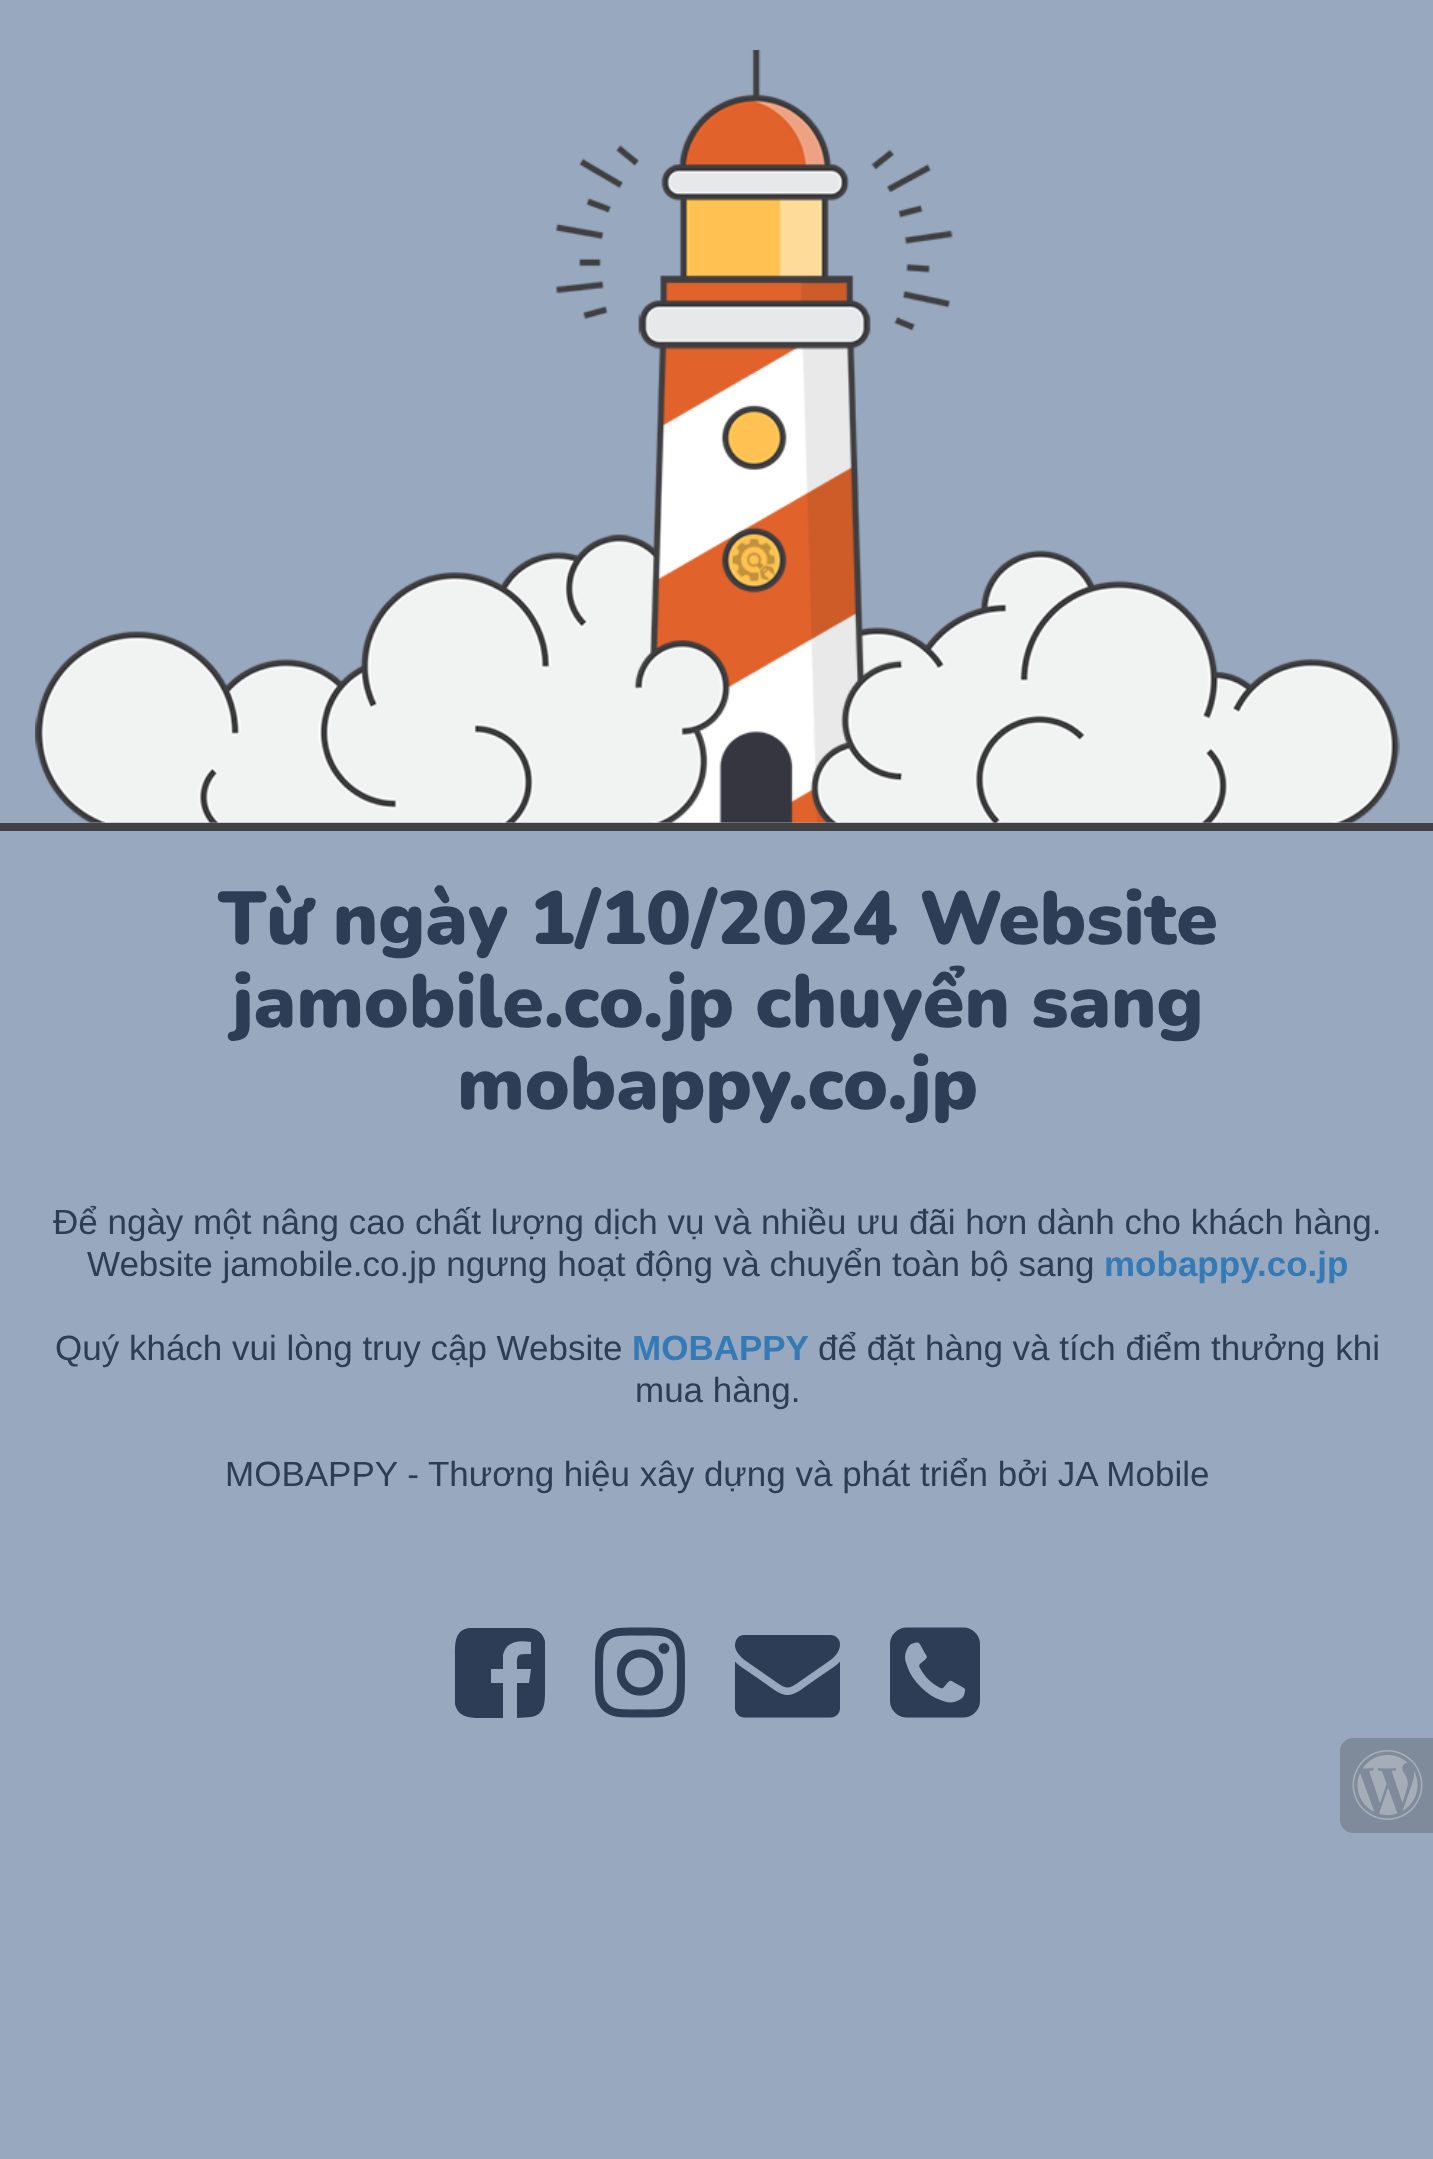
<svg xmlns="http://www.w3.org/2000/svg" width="1433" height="2159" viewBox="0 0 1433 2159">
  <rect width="100%" height="100%" fill="#98a8be"/>
  <path d="M0 823h1433v8H0z" fill="#414042"/>
  <image x="35" y="50" width="1365" height="773" href="img/1.png"/>
  <path d="M528 1628C536 1628 543 1633 545 1641V1691C545 1702 545 1715 531 1717L517 1718V1683H529L531 1669H517C517 1654 516 1654 531 1654V1642C519 1640 506 1641 503 1655V1669H491V1683H503V1718H482C471 1718 458 1718 455 1704V1654C455 1643 455 1630 469 1628Z" fill="#2c3d55"/>
  <image x="595" y="1627" width="90" height="91" href="img/2.png"/>
  <image x="735" y="1635" width="105" height="83" href="img/3.png"/>
  <image x="890" y="1627" width="90" height="91" href="img/4.png"/>
  <path d="M1353 1738H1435V1833H1353C1346 1833 1340 1827 1340 1820V1751C1340 1744 1346 1738 1353 1738Z" fill="#7f8b9a"/>
  <image x="1352" y="1750" width="71" height="70" href="img/5.png"/>
  <g font-family="Nunito" font-size="75" font-weight="200" fill="#2c3d55">
    <text x="218" y="944">Từ ngày 1/10/2024 Website</text>
    <text x="232" y="1027">jamobile.co.jp chuyển sang</text>
    <text x="457" y="1109">mobappy.co.jp</text>
  </g>
  <g font-family="Liberation Sans" font-size="35" fill="#2c3d55">
    <text x="53" y="1234">Để ngày một nâng cao chất lượng dịch vụ và nhiều ưu đãi hơn dành cho khách hàng.</text>
    <text x="87" y="1276">Website jamobile.co.jp ngưng hoạt động và chuyển toàn bộ sang</text>
  </g>
  <text x="1104" y="1276" font-family="Liberation Sans" font-size="35" font-weight="bold" fill="#337ab7">mobappy.co.jp</text>
  <text x="55" y="1360" font-family="Liberation Sans" font-size="35" fill="#2c3d55">Quý khách vui lòng truy cập Website</text>
  <text x="632" y="1360" font-family="Liberation Sans" font-size="35" font-weight="bold" fill="#337ab7">MOBAPPY</text>
  <g font-family="Liberation Sans" font-size="35" fill="#2c3d55">
    <text x="818" y="1360">để đặt hàng và tích điểm thưởng khi</text>
    <text x="635" y="1402">mua hàng.</text>
    <text x="225" y="1486">MOBAPPY - Thương hiệu xây dựng và phát triển bởi JA Mobile</text>
  </g>
</svg>
